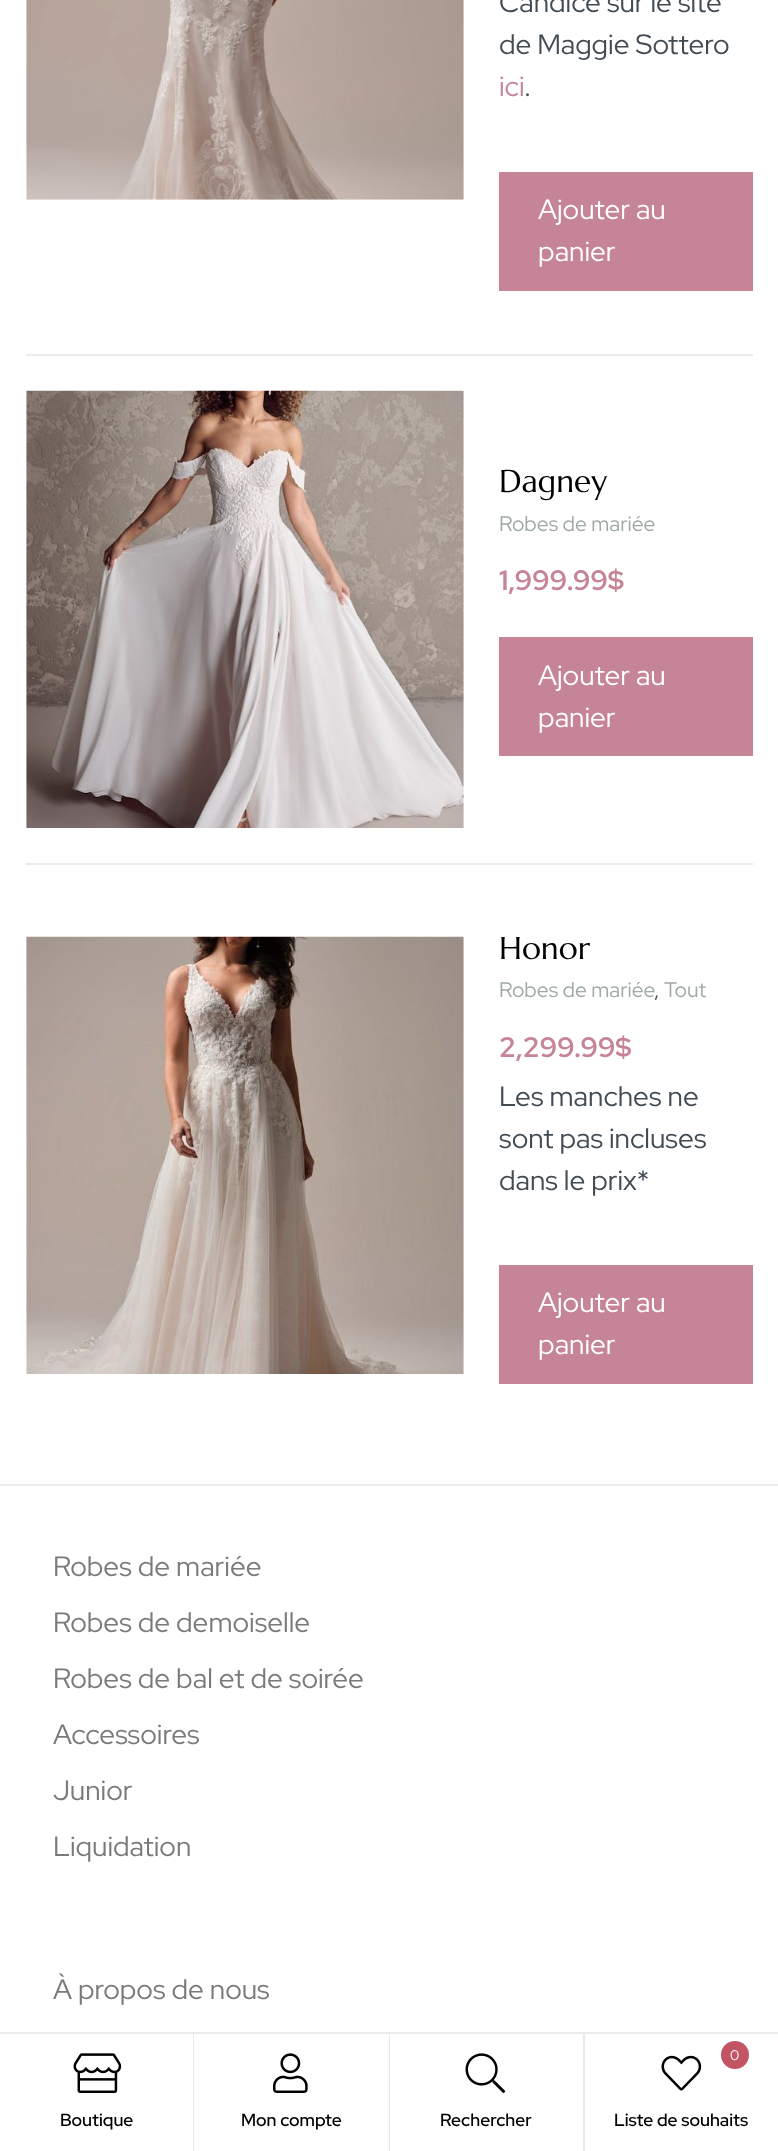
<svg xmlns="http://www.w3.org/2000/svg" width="778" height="2151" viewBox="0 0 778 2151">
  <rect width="100%" height="100%" fill="#fff"/>
  <path d="M26 354h727v2H26z" fill="#ebebeb"/>
  <image x="26" y="0" width="438" height="200" href="img/1.png"/>
  <path d="M499 172h254v119H499z" fill="#c68596"/>
  <path d="M26 863h727v2H26z" fill="#ebebeb"/>
  <image x="26" y="390" width="438" height="438" href="img/2.png"/>
  <path d="M499 637h254v119H499z" fill="#c68596"/>
  <image x="26" y="936" width="438" height="438" href="img/3.png"/>
  <path d="M499 1265h254v119H499z" fill="#c68596"/>
  <path d="M0 1484h778v2H0z" fill="#ededed"/>
  <path d="M0 2032h778v2H0z" fill="#ebebeb"/>
  <path d="M193 2034h1v117H193z" fill="#ebebeb"/>
  <image x="73" y="2053" width="49" height="40" href="img/4.png"/>
  <path d="M389 2034h1v117H389z" fill="#ebebeb"/>
  <image x="273" y="2053" width="35" height="40" href="img/5.png"/>
  <path d="M583 2034h2v117H583z" fill="#ebebeb"/>
  <image x="465" y="2053" width="41" height="40" href="img/6.png"/>
  <image x="661" y="2055" width="41" height="36" href="img/7.png"/>
  <circle cx="735" cy="2055" r="14" fill="#c25464"/>
  <g font-family="Red Hat Display" font-size="28" fill="#424b54">
    <text x="499" y="12">Candice sur le site</text>
    <text x="499" y="54">de Maggie Sottero</text>
  </g>
  <text x="499" y="96" font-family="Red Hat Display" font-size="28" fill="#c68596">ici</text>
  <text x="524" y="96" font-family="Red Hat Display" font-size="28" fill="#424b54">.</text>
  <g font-family="Red Hat Display" font-size="28" fill="#fff">
    <text x="538" y="219">Ajouter au</text>
    <text x="538" y="261">panier</text>
  </g>
  <text x="499" y="492" font-family="Marcellus" font-size="31.5" fill="#000">Dagney</text>
  <text x="499" y="531" font-family="Red Hat Display" font-size="21" fill="#9faaa7">Robes de mariée</text>
  <text x="499" y="590" font-family="Red Hat Display" font-size="28" font-weight="bold" fill="#c68596">1,999.99$</text>
  <g font-family="Red Hat Display" font-size="28" fill="#fff">
    <text x="538" y="685">Ajouter au</text>
    <text x="538" y="727">panier</text>
  </g>
  <text x="499" y="959" font-family="Marcellus" font-size="31.5" fill="#000">Honor</text>
  <text x="499" y="997" font-family="Red Hat Display" font-size="21" fill="#9faaa7">Robes de mariée</text>
  <text x="654" y="997" font-family="Red Hat Display" font-size="21" fill="#424b54">,</text>
  <text x="664" y="997" font-family="Red Hat Display" font-size="21" fill="#9faaa7">Tout</text>
  <text x="499" y="1057" font-family="Red Hat Display" font-size="28" font-weight="bold" fill="#c68596">2,299.99$</text>
  <g font-family="Red Hat Display" font-size="28" fill="#424b54">
    <text x="499" y="1106">Les manches ne</text>
    <text x="499" y="1148">sont pas incluses</text>
    <text x="499" y="1190">dans le prix*</text>
  </g>
  <g font-family="Red Hat Display" font-size="28" fill="#fff">
    <text x="538" y="1312">Ajouter au</text>
    <text x="538" y="1354">panier</text>
  </g>
  <g font-family="Red Hat Display" font-size="28" fill="#7a7a7a">
    <text x="53" y="1576">Robes de mariée</text>
    <text x="53" y="1632">Robes de demoiselle</text>
    <text x="53" y="1688">Robes de bal et de soirée</text>
    <text x="53" y="1744">Accessoires</text>
    <text x="53" y="1800">Junior</text>
    <text x="53" y="1856">Liquidation</text>
    <text x="53" y="1999">À propos de nous</text>
  </g>
  <g font-family="Red Hat Display" font-size="17.5" font-weight="600" fill="#000">
    <text x="60" y="2126">Boutique</text>
    <text x="241" y="2126">Mon compte</text>
    <text x="440" y="2126">Rechercher</text>
  </g>
  <text x="730" y="2060" font-family="Red Hat Display" font-size="14" fill="#fff">0</text>
  <text x="614" y="2126" font-family="Red Hat Display" font-size="17.5" font-weight="600" fill="#000">Liste de souhaits</text>
</svg>
